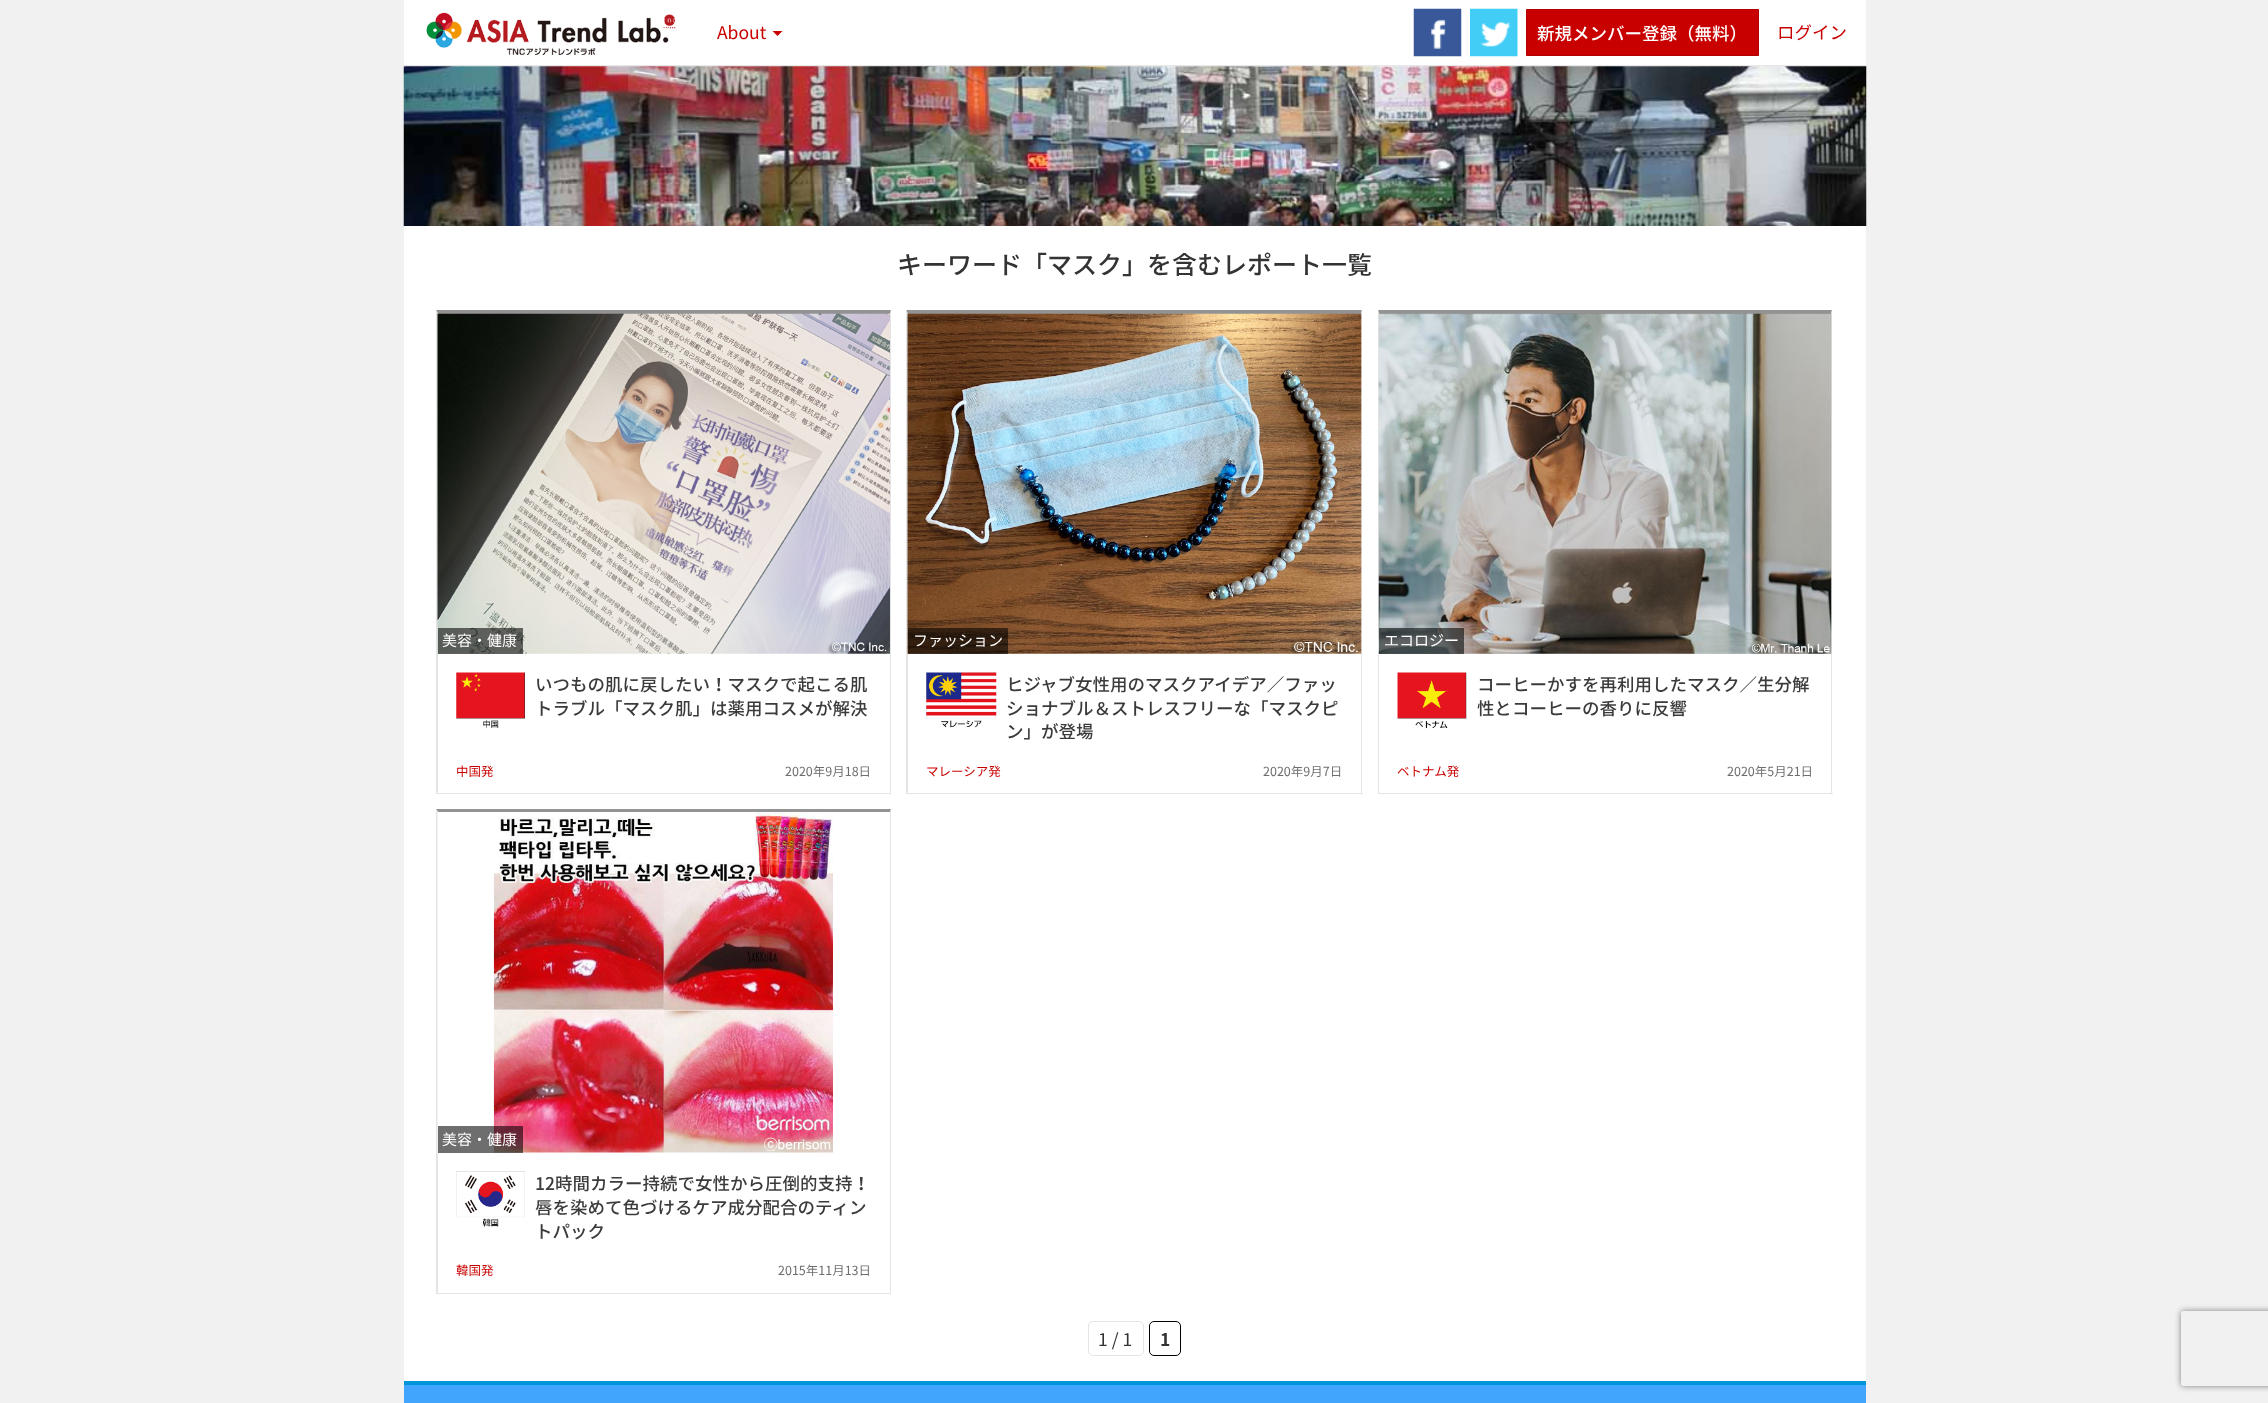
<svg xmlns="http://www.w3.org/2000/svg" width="2268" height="1403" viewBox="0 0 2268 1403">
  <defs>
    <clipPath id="clip1"><path d="M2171 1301H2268V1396H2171ZM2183.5 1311H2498.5C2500 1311 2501 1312 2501 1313.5V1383.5C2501 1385 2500 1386 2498.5 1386H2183.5C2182 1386 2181 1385 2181 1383.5V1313.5C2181 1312 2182 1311 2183.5 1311Z" clip-rule="evenodd"/></clipPath>
  </defs>
  <rect width="100%" height="100%" fill="#f1f1f1"/>
  <path d="M404 0h1462v67H404z" fill="#fff"/>
  <path d="M404 65h1462v1H404z" fill="#e7e7e7"/>
  <image x="426" y="12" width="250" height="43" href="img/1.png"/>
  <path d="M772.5 31H782.5L777.5 36Z" fill="#c90000"/>
  <image x="1413" y="8" width="49" height="49" href="img/2.png"/>
  <image x="1470" y="8" width="48" height="49" href="img/3.png"/>
  <path d="M1526.5 9.5h232v46H1526.5z" fill="#c90000" stroke="#b20000"/>
  <image x="403" y="66" width="1464" height="161" href="img/4.png"/>
  <path d="M404 226h1462v1155H404z" fill="#fff"/>
  <path d="M436 310H891L890 314H438Z" fill="#939393"/>
  <path d="M891 310V794L890 792V314Z" fill="#e4e4e4"/>
  <path d="M436 793h455v1H436z" fill="#e4e4e4"/>
  <path d="M436 794V310L438 314V792Z" fill="#e4e4e4"/>
  <image x="437" y="313" width="453" height="341" href="img/5.png"/>
  <path d="M438 628h85v26H438z" fill="#00000091"/>
  <image x="456" y="672" width="69" height="56" href="img/6.png"/>
  <path d="M906 310H1362L1361 314H908Z" fill="#939393"/>
  <path d="M1362 310V794L1361 792V314Z" fill="#e4e4e4"/>
  <path d="M906 793h457v1H906z" fill="#e4e4e4"/>
  <path d="M906 794V310L908 314V792Z" fill="#e4e4e4"/>
  <image x="907" y="313" width="455" height="341" href="img/7.png"/>
  <path d="M908 628h100v26H908z" fill="#00000091"/>
  <image x="926" y="672" width="71" height="56" href="img/8.png"/>
  <path d="M1378 310H1832L1831 314H1379Z" fill="#939393"/>
  <path d="M1832 310V794L1831 792V314Z" fill="#e4e4e4"/>
  <path d="M1378 793h455v1H1378z" fill="#e4e4e4"/>
  <path d="M1378 794V310L1379 314V792Z" fill="#e4e4e4"/>
  <image x="1378" y="313" width="454" height="341" href="img/9.png"/>
  <path d="M1379 628h85v26H1379z" fill="#00000091"/>
  <image x="1397" y="672" width="70" height="57" href="img/10.png"/>
  <path d="M436 809H891L890 812H438Z" fill="#939393"/>
  <path d="M891 809V1294L890 1292V812Z" fill="#e4e4e4"/>
  <path d="M436 1293h455v1H436z" fill="#e4e4e4"/>
  <path d="M436 1294V809L438 812V1292Z" fill="#e4e4e4"/>
  <image x="437" y="812" width="396" height="341" href="img/11.png"/>
  <path d="M438 1126h85v27H438z" fill="#00000091"/>
  <image x="456" y="1171" width="69" height="56" href="img/12.png"/>
  <rect x="1088.5" y="1321.5" width="55" height="34" rx="4.5" fill="none" stroke="#e4e4e4"/>
  <rect x="1149.5" y="1321.5" width="31" height="34" rx="4.5" fill="none" stroke="#000"/>
  <path d="M404 1385h1462v18H404z" fill="#41a5fd"/>
  <path d="M404 1381h1462v4H404z" fill="#0095da"/>
  <g clip-path="url(#clip1)">
    <rect x="2181" y="1311" width="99" height="75" rx="2.5" fill="#808080" filter="blur(3px)"/>
  </g>
  <text x="717" y="39" font-family="Noto Sans JP" font-size="17.5" fill="#c90000">About</text>
  <text x="1537" y="40" font-family="Noto Sans JP" font-size="17.5" font-weight="500" fill="#fff">新規メンバー登録（無料）</text>
  <text x="1777" y="39" font-family="Noto Sans JP" font-size="17.5" fill="#c90000">ログイン</text>
  <text x="897" y="274" font-family="Noto Sans JP" font-size="25" font-weight="500" fill="#333">キーワード「マスク」を含むレポート一覧</text>
  <text x="442" y="646" font-family="Noto Sans JP" font-size="15" fill="#fff">美容・健康</text>
  <g font-family="Noto Sans JP" font-size="17.5" font-weight="500" fill="#3b3b3b">
    <text x="535" y="691">いつもの肌に戻したい！マスクで起こる肌</text>
    <text x="535" y="715">トラブル「マスク肌」は薬用コスメが解決</text>
  </g>
  <text x="456" y="776" font-family="Noto Sans JP" font-size="12.5" fill="#c90000">中国発</text>
  <text x="785" y="776" font-family="Noto Sans JP" font-size="12.5" fill="#6e6e6e">2020年9月18日</text>
  <text x="913" y="646" font-family="Noto Sans JP" font-size="15" fill="#fff">ファッション</text>
  <g font-family="Noto Sans JP" font-size="17.5" font-weight="500" fill="#3b3b3b">
    <text x="1006" y="691">ヒジャブ女性用のマスクアイデア／ファッ</text>
    <text x="1006" y="715">ショナブル＆ストレスフリーな「マスクピ</text>
    <text x="1006" y="738">ン」が登場</text>
  </g>
  <text x="926" y="776" font-family="Noto Sans JP" font-size="12.5" fill="#c90000">マレーシア発</text>
  <text x="1263" y="776" font-family="Noto Sans JP" font-size="12.5" fill="#6e6e6e">2020年9月7日</text>
  <text x="1384" y="646" font-family="Noto Sans JP" font-size="15" fill="#fff">エコロジー</text>
  <g font-family="Noto Sans JP" font-size="17.5" font-weight="500" fill="#3b3b3b">
    <text x="1477" y="691">コーヒーかすを再利用したマスク／生分解</text>
    <text x="1477" y="715">性とコーヒーの香りに反響</text>
  </g>
  <text x="1397" y="776" font-family="Noto Sans JP" font-size="12.5" fill="#c90000">ベトナム発</text>
  <text x="1727" y="776" font-family="Noto Sans JP" font-size="12.5" fill="#6e6e6e">2020年5月21日</text>
  <text x="442" y="1145" font-family="Noto Sans JP" font-size="15" fill="#fff">美容・健康</text>
  <g font-family="Noto Sans JP" font-size="17.5" font-weight="500" fill="#3b3b3b">
    <text x="535" y="1190">12時間カラー持続で女性から圧倒的支持！</text>
    <text x="535" y="1214">唇を染めて色づけるケア成分配合のティン</text>
    <text x="535" y="1238">トパック</text>
  </g>
  <text x="456" y="1275" font-family="Noto Sans JP" font-size="12.5" fill="#c90000">韓国発</text>
  <text x="778" y="1275" font-family="Noto Sans JP" font-size="12.5" fill="#6e6e6e">2015年11月13日</text>
  <text x="1098" y="1346" font-family="Noto Sans JP" font-size="17.5" fill="#333">1 / 1</text>
  <text x="1160" y="1346" font-family="Noto Sans JP" font-size="17.5" font-weight="bold" fill="#333">1</text>
</svg>
